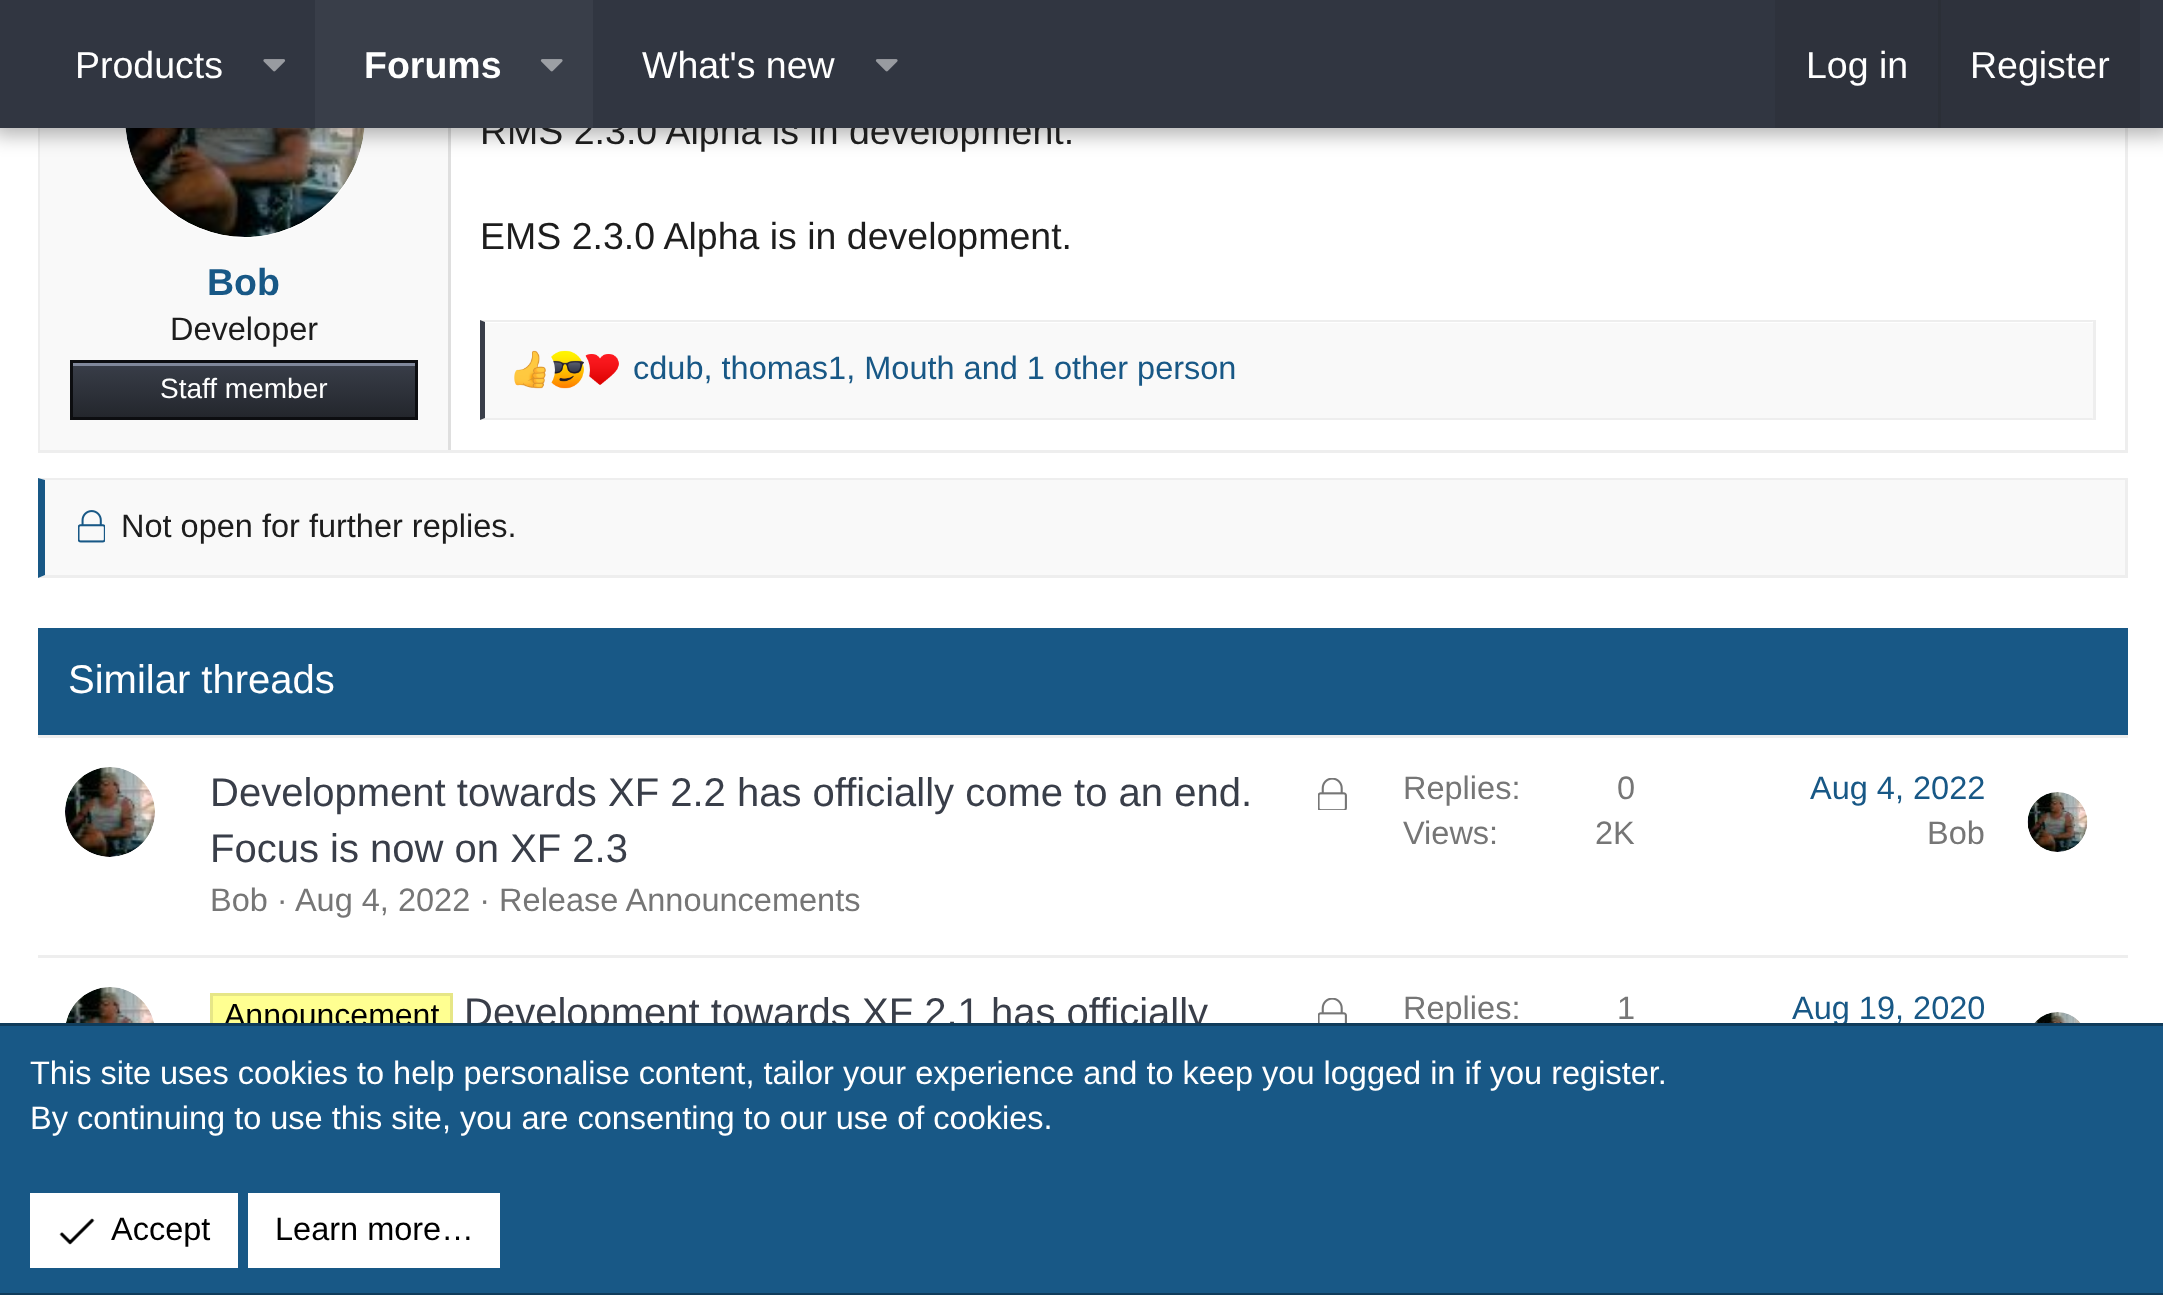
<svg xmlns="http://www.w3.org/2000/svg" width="2163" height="1295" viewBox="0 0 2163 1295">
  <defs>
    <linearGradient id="g1" gradientUnits="userSpaceOnUse" x1="244" y1="363" x2="244" y2="418"><stop offset="0" stop-color="#393e49"/><stop offset="1" stop-color="#23262c"/></linearGradient>
  </defs>
  <rect width="100%" height="100%" fill="#fff"/>
  <path d="M39.5 -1.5h2087v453H39.5z" fill="none" stroke="#eee" stroke-width="3"/>
  <path d="M40 128h408v322H40z" fill="#f9f9f9"/>
  <path d="M448 128h3v322H448z" fill="#dfdfdf"/>
  <circle cx="245" cy="118" r="120" fill="#fff"/>
  <image x="125" y="128" width="240" height="109" href="img/4.png"/>
  <path d="M-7 -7h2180v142H-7z" fill="#0000004d" filter="blur(10px)"/>
  <path d="M73 366h342v51H73z" fill="url(#g1)"/>
  <path d="M73 363h342v3H73z" fill="#80889b"/>
  <path d="M71.5 361.5h345v57H71.5z" fill="none" stroke="#0c0d10" stroke-width="3"/>
  <path d="M485 323h1608v95H485z" fill="#f9f9f9"/>
  <path d="M480 320H2095L2092 322H485Z" fill="#eee"/>
  <path d="M2093 320h3v100H2093z" fill="#eee"/>
  <path d="M2095 420H480L485 418H2092Z" fill="#eee"/>
  <path d="M480 420V320L485 322V418Z" fill="#393e49"/>
  <image x="585" y="354" width="34" height="31" href="img/7.png"/>
  <circle cx="565" cy="370" r="25" fill="#f9f9f9"/>
  <image x="551" y="350" width="33" height="39" href="img/6.png"/>
  <circle cx="530" cy="370" r="25" fill="#f9f9f9"/>
  <image x="514" y="350" width="32" height="39" href="img/5.png"/>
  <path d="M45 480h2080v95H45z" fill="#f9f9f9"/>
  <path d="M38 478H2128L2125 480H45Z" fill="#eee"/>
  <path d="M2125 478h3v100H2125z" fill="#eee"/>
  <path d="M2128 578H38L45 575H2125Z" fill="#eee"/>
  <path d="M38 578V478L45 480V575Z" fill="#185886"/>
  <image x="78" y="510" width="27" height="33" href="img/8.png"/>
  <path d="M38 628h2090v107H38z" fill="#185886"/>
  <path d="M38 735h2090v3H38z" fill="#eee"/>
  <image x="65" y="767" width="90" height="90" href="img/9.png"/>
  <image x="1318" y="778" width="29" height="32" href="img/10.png"/>
  <image x="2027" y="792" width="61" height="60" href="img/11.png"/>
  <path d="M38 955h2090v3H38z" fill="#eee"/>
  <image x="66" y="987" width="88" height="36" href="img/12.png"/>
  <path d="M213 996h237v27H213z" fill="#ffff91"/>
  <path d="M211.5 994.5h240v47H211.5z" fill="none" stroke="#e6e687" stroke-width="3"/>
  <image x="1318" y="998" width="29" height="25" href="img/13.png"/>
  <image x="2034" y="1012" width="47" height="11" href="img/14.png"/>
  <path d="M0 1293h2163v2H0z" fill="#103c5b"/>
  <text x="207" y="295" font-family="Liberation Sans" font-size="37.5" font-weight="bold" fill="#185886">Bob</text>
  <text x="170" y="340" font-family="Liberation Sans" font-size="32.5" fill="#1d1d1d">Developer</text>
  <text x="160" y="398" font-family="Liberation Sans" font-size="28" fill="#fff">Staff member</text>
  <text x="480" y="144" font-family="Liberation Sans" font-size="37.5" fill="#1d1d1d">RMS 2.3.0 Alpha is in development.</text>
  <path d="M0 0h2163v128H0z" fill="#313641"/>
  <image x="875" y="59" width="23" height="13" href="img/3.png"/>
  <path d="M315 0h278v128H315z" fill="#393e49"/>
  <image x="540" y="59" width="23" height="13" href="img/2.png"/>
  <image x="263" y="59" width="23" height="13" href="img/1.png"/>
  <text x="642" y="78" font-family="Liberation Sans" font-size="37.5" fill="#fff">What's new</text>
  <text x="364" y="78" font-family="Liberation Sans" font-size="37.5" font-weight="bold" fill="#fff">Forums</text>
  <text x="75" y="78" font-family="Liberation Sans" font-size="37.5" fill="#fff">Products</text>
  <path d="M1775 0h365v128H1775z" fill="#2e323c"/>
  <text x="1970" y="78" font-family="Liberation Sans" font-size="37.5" fill="#fff">Register</text>
  <path d="M1938 0h3v128H1938z" fill="#2b2f37"/>
  <text x="1806" y="78" font-family="Liberation Sans" font-size="37.5" fill="#fff">Log in</text>
  <text x="480" y="249" font-family="Liberation Sans" font-size="37.5" fill="#1d1d1d">EMS 2.3.0 Alpha is in development.</text>
  <text x="633" y="379" font-family="Liberation Sans" font-size="32.5" fill="#185886">cdub, thomas1, Mouth and 1 other person</text>
  <text x="121" y="537" font-family="Liberation Sans" font-size="32.5" fill="#1d1d1d">Not open for further replies.</text>
  <text x="68" y="693" font-family="Liberation Sans" font-size="40" fill="#fff">Similar threads</text>
  <g font-family="Liberation Sans" font-size="40" fill="#393e49">
    <text x="210" y="806">Development towards XF 2.2 has officially come to an end.</text>
    <text x="210" y="862">Focus is now on XF 2.3</text>
  </g>
  <g font-family="Liberation Sans" font-size="32.5" fill="#767676">
    <text x="210" y="911">Bob · Aug 4, 2022 · Release Announcements</text>
    <text x="1403" y="799">Replies:</text>
    <text x="1617" y="799">0</text>
    <text x="1403" y="844">Views:</text>
    <text x="1595" y="844">2K</text>
  </g>
  <text x="1810" y="799" font-family="Liberation Sans" font-size="32.5" fill="#185886">Aug 4, 2022</text>
  <text x="1927" y="844" font-family="Liberation Sans" font-size="32.5" fill="#767676">Bob</text>
  <text x="224" y="1026" font-family="Liberation Sans" font-size="32" fill="#000">Announcement</text>
  <text x="464" y="1026" font-family="Liberation Sans" font-size="40" fill="#393e49">Development towards XF 2.1 has officially</text>
  <g font-family="Liberation Sans" font-size="32.5" fill="#767676">
    <text x="1403" y="1019">Replies:</text>
    <text x="1617" y="1019">1</text>
  </g>
  <text x="1792" y="1019" font-family="Liberation Sans" font-size="32.5" fill="#185886">Aug 19, 2020</text>
  <path d="M0 1026h2163v267H0z" fill="#185886"/>
  <path d="M0 1023h2163v3H0z" fill="#103c5b"/>
  <g font-family="Liberation Sans" font-size="32.5" fill="#fff">
    <text x="30" y="1084">This site uses cookies to help personalise content, tailor your experience and to keep you logged in if you register.</text>
    <text x="30" y="1129">By continuing to use this site, you are consenting to our use of cookies.</text>
  </g>
  <path d="M30 1193h208v75H30z" fill="#fff"/>
  <image x="59" y="1218" width="36" height="27" href="img/15.png"/>
  <text x="111" y="1240" font-family="Liberation Sans" font-size="32.5" fill="#000">Accept</text>
  <path d="M248 1193h252v75H248z" fill="#fff"/>
  <text x="275" y="1240" font-family="Liberation Sans" font-size="32.5" fill="#000">Learn more…</text>
</svg>
